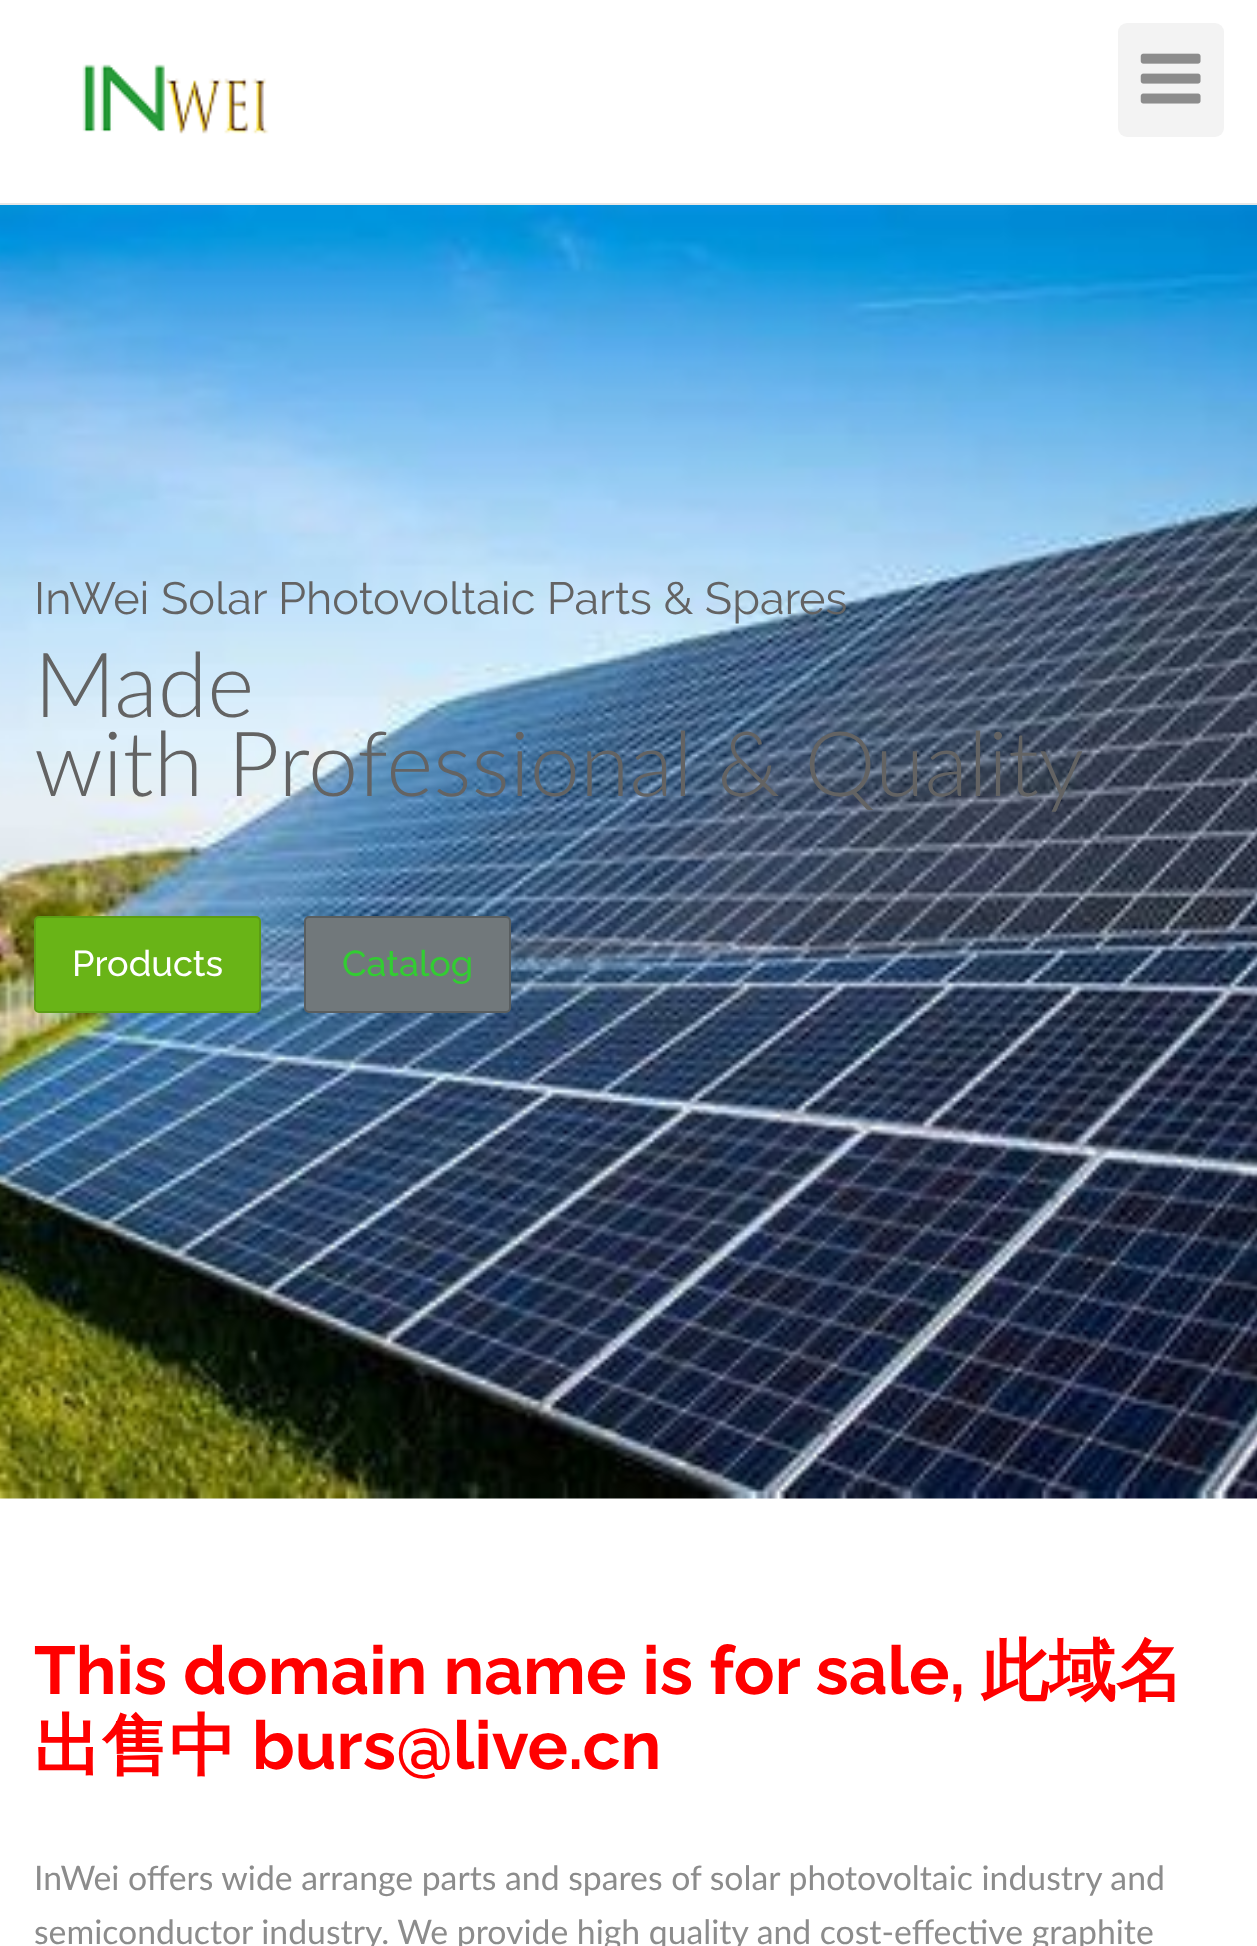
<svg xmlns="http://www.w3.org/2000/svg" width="1257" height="1946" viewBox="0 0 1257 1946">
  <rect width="100%" height="100%" fill="#fff"/>
  <path d="M0 203h1257v2H0z" fill="#e7e7e7"/>
  <image x="82" y="64" width="187" height="70" href="img/1.png"/>
  <rect x="1118" y="23" width="106" height="114" rx="9" fill="#f3f3f3"/>
  <image x="1140" y="53" width="61" height="51" href="img/2.png"/>
  <image x="0" y="205" width="1257" height="1294" href="img/3.png"/>
  <rect x="35" y="917" width="225" height="95" rx="4" fill="#69b417" stroke="#5c9d14" stroke-width="2"/>
  <rect x="305" y="917" width="205" height="95" rx="4" fill="#71787b" stroke="#595e60" stroke-width="2"/>
  <text x="34" y="614" font-family="Raleway" font-size="45" fill="#636363">InWei Solar Photovoltaic Parts &amp; Spares</text>
  <g font-family="Lato" font-size="90" font-weight="300" fill="#636363">
    <text x="34" y="717">Made</text>
    <text x="34" y="796">with Professional &amp; Quality</text>
  </g>
  <text x="72" y="976" font-family="Raleway" font-size="36" font-weight="500" fill="#fff">Products</text>
  <text x="342" y="976" font-family="Raleway" font-size="36" font-weight="500" fill="#32cd32">Catalog</text>
  <text x="34" y="1694" font-family="Raleway" font-size="67.5" font-weight="bold" fill="#f00">This domain name is for sale,</text>
  <g font-family="WenQuanYi Zen Hei" font-size="67.5" font-weight="bold" fill="#f00">
    <text x="981" y="1694">此域名</text>
    <text x="34" y="1769">出售中</text>
  </g>
  <text x="252" y="1769" font-family="Raleway" font-size="67.5" font-weight="bold" fill="#f00">burs@live.cn</text>
  <g font-family="Lato" font-size="33.75" fill="#8c8c8c">
    <text x="34" y="1890">InWei offers wide arrange parts and spares of solar photovoltaic industry and</text>
    <text x="34" y="1944">semiconductor industry. We provide high quality and cost-effective graphite</text>
  </g>
</svg>
